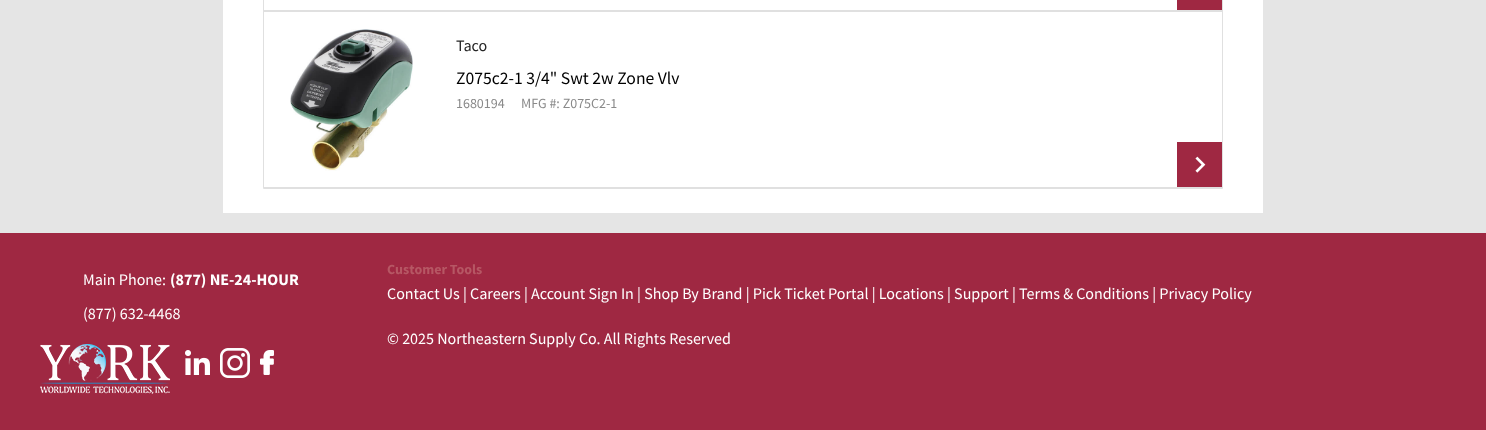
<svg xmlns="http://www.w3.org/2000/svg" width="1486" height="430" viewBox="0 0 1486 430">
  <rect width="100%" height="100%" fill="#e5e5e5"/>
  <path d="M223 0h1040v213H223z" fill="#fff"/>
  <path d="M263.5 -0.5h959v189H263.5z" fill="none" stroke="#e0e0e0"/>
  <path d="M264 10h958v2H264z" fill="#e0e0e0"/>
  <path d="M1177 0h45v10H1177z" fill="#9f2842"/>
  <image x="290" y="29" width="123" height="142" href="img/1.png"/>
  <path d="M1177 142h45v45H1177z" fill="#9f2842"/>
  <image x="1195" y="156" width="11" height="17" href="img/2.png"/>
  <path d="M264 187h958v1H264z" fill="#e0e0e0"/>
  <path d="M0 233h1486v197H0z" fill="#9f2842"/>
  <image x="40" y="344" width="130" height="50" href="img/3.png"/>
  <image x="185" y="350" width="25" height="25" href="img/4.png"/>
  <image x="220" y="348" width="30" height="30" href="img/5.png"/>
  <image x="260" y="350" width="14" height="25" href="img/6.png"/>
  <text x="456" y="51" font-family="Source Sans Pro" font-size="16" fill="#252525">Taco</text>
  <text x="456" y="84" font-family="Source Sans Pro" font-size="17.6" fill="#000">Z075c2-1 3/4" Swt 2w Zone Vlv</text>
  <g font-family="Source Sans Pro" font-size="14" fill="#8a8a8a">
    <text x="456" y="108">1680194</text>
    <text x="521" y="108">MFG #: Z075C2-1</text>
  </g>
  <text x="83" y="285" font-family="Source Sans Pro" font-size="16" fill="#fff">Main Phone:</text>
  <text x="170" y="285" font-family="Source Sans Pro" font-size="16" font-weight="bold" fill="#fff">(877) NE-24-HOUR</text>
  <text x="83" y="319" font-family="Source Sans Pro" font-size="16" fill="#fff">(877) 632-4468</text>
  <text x="387" y="274" font-family="Source Sans Pro" font-size="14" font-weight="bold" fill="#b65764">Customer Tools</text>
  <g font-family="Source Sans Pro" font-size="16" fill="#fff">
    <text x="387" y="299">Contact Us | Careers | Account Sign In | Shop By Brand | Pick Ticket Portal | Locations | Support | Terms &amp; Conditions | Privacy Policy</text>
    <text x="387" y="344">© 2025 Northeastern Supply Co. All Rights Reserved</text>
  </g>
</svg>
